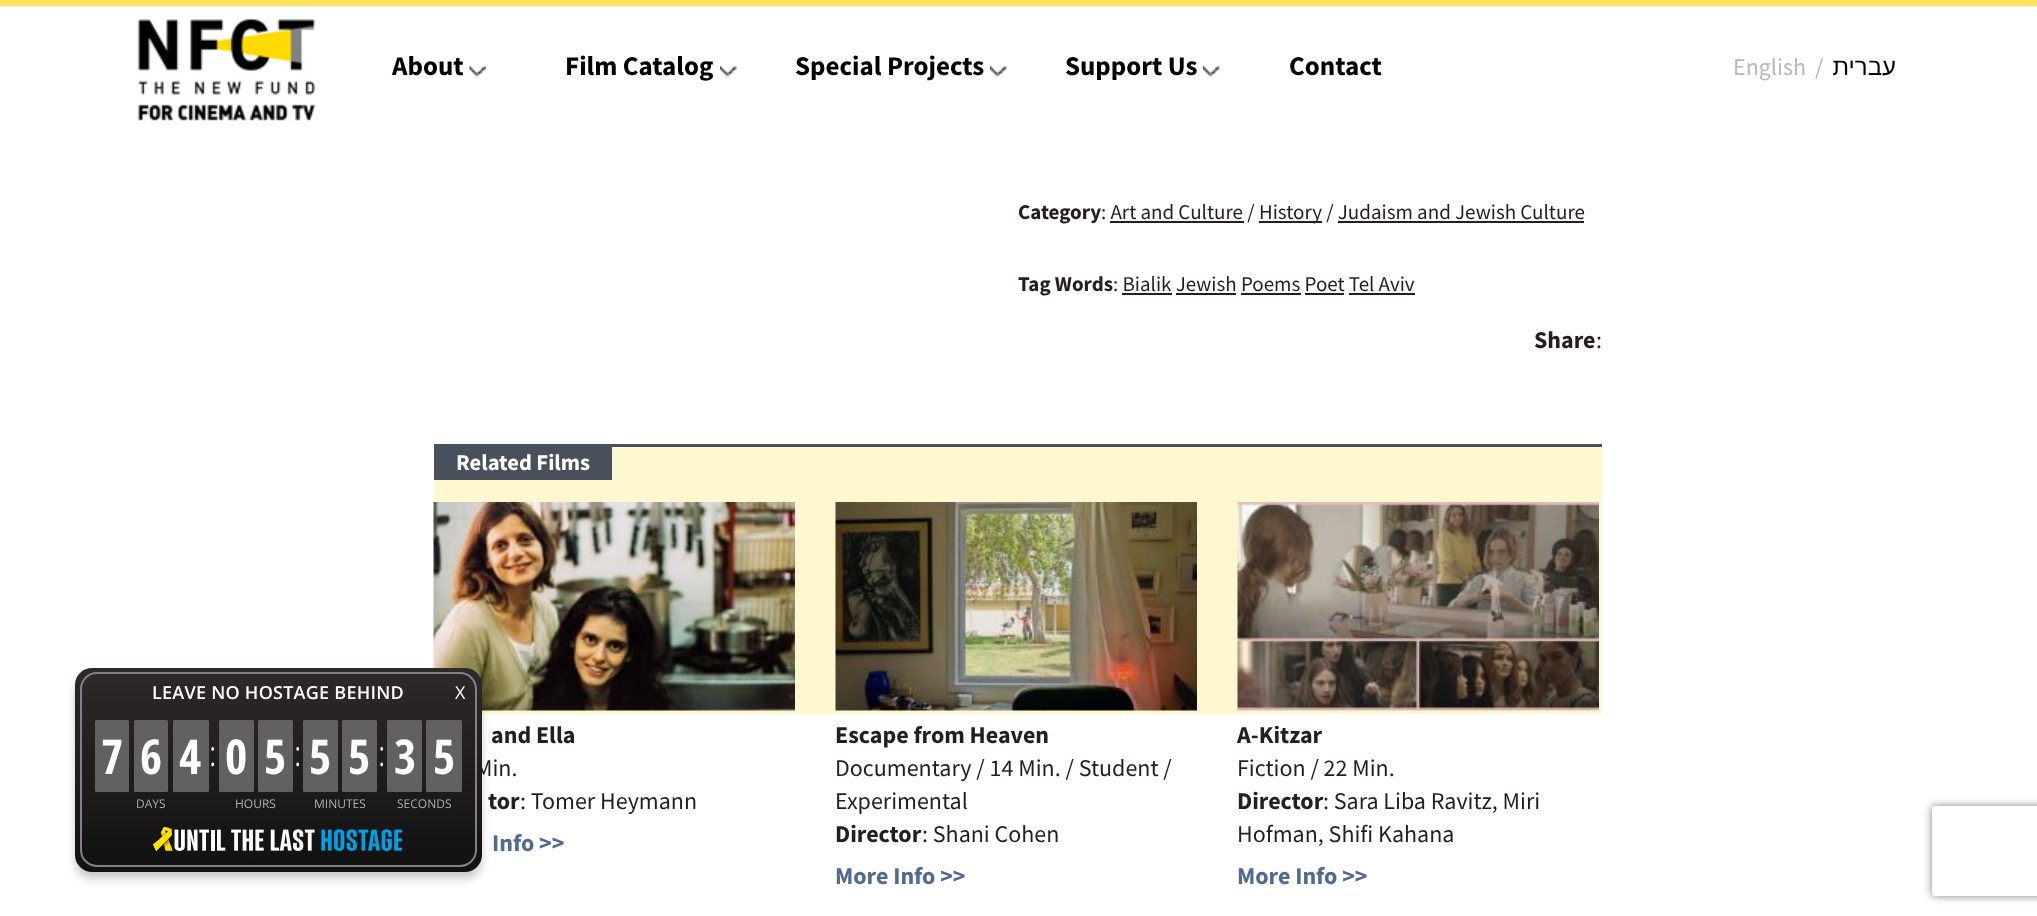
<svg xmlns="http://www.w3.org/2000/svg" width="2037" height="916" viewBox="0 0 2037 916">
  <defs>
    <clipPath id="clip1"><path d="M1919 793H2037V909H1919ZM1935 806H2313C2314.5 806 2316 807.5 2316 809V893C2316 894.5 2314.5 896 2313 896H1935C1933.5 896 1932 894.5 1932 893V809C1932 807.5 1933.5 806 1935 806Z" clip-rule="evenodd"/></clipPath>
    <linearGradient id="g1" gradientUnits="userSpaceOnUse" x1="278" y1="668" x2="278" y2="872"><stop offset="0" stop-color="#2f2929"/><stop offset="1" stop-color="#111"/></linearGradient>
  </defs>
  <rect width="100%" height="100%" fill="#fff"/>
  <path d="M0 0h2037v6H0z" fill="#fce45c"/>
  <image x="137" y="18" width="179" height="103" href="img/1.png"/>
  <image x="469" y="66" width="17" height="12" href="img/2.png"/>
  <image x="720" y="66" width="17" height="12" href="img/3.png"/>
  <image x="990" y="66" width="17" height="12" href="img/3.png"/>
  <image x="1203" y="66" width="17" height="12" href="img/3.png"/>
  <path d="M434 447h1168v267H434z" fill="#fff7cf"/>
  <image x="433" y="502" width="362" height="209" href="img/5.png"/>
  <rect x="75" y="675" width="407" height="204" rx="17" fill="#00000033" filter="blur(4px)"/>
  <path d="M1259 221h63v2H1259z" fill="#251e1e"/>
  <path d="M1110 221h134v2H1110z" fill="#251e1e"/>
  <path d="M1338 221h246v2H1338z" fill="#251e1e"/>
  <path d="M1122 293h50v2H1122z" fill="#251e1e"/>
  <path d="M1176 293h60v2H1176z" fill="#251e1e"/>
  <path d="M1241 293h60v2H1241z" fill="#251e1e"/>
  <path d="M1305 293h39v2H1305z" fill="#251e1e"/>
  <path d="M1349 293h66v2H1349z" fill="#251e1e"/>
  <path d="M434 444h1168v3H434z" fill="#48505c"/>
  <path d="M434 447h178v33H434z" fill="#48505c"/>
  <image x="835" y="502" width="362" height="209" href="img/6.png"/>
  <image x="1237" y="502" width="362" height="209" href="img/7.png"/>
  <g clip-path="url(#clip1)">
    <rect x="1932" y="806" width="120" height="90" rx="3" fill="#808080" filter="blur(4px)"/>
  </g>
  <g font-family="Source Sans Pro" font-size="27" font-weight="bold" fill="#000">
    <text x="392" y="75">About</text>
    <text x="565" y="75">Film Catalog</text>
    <text x="795" y="75">Special Projects</text>
    <text x="1065" y="75">Support Us</text>
    <text x="1289" y="75">Contact</text>
  </g>
  <g font-family="Source Sans Pro" font-size="24" fill="#b7b7b7">
    <text x="1733" y="75">English</text>
    <text x="1815" y="75">/</text>
  </g>
  <text x="1896" y="75" font-family="Liberation Sans" font-size="24" direction="rtl" fill="#000">עברית</text>
  <text x="1018" y="219" font-family="Source Sans Pro" font-size="21" font-weight="bold" fill="#251e1e">Category</text>
  <g font-family="Source Sans Pro" font-size="21" fill="#251e1e">
    <text x="1101" y="219">: Art and Culture /</text>
    <text x="1259" y="219">History / Judaism and Jewish Culture</text>
  </g>
  <text x="1018" y="291" font-family="Source Sans Pro" font-size="21" font-weight="bold" fill="#251e1e">Tag Words</text>
  <text x="1113" y="291" font-family="Source Sans Pro" font-size="21" fill="#251e1e">: Bialik Jewish Poems Poet Tel Aviv</text>
  <text x="1534" y="348" font-family="Source Sans Pro" font-size="24" font-weight="bold" fill="#251e1e">Share</text>
  <text x="1596" y="348" font-family="Source Sans Pro" font-size="24" fill="#251e1e">:</text>
  <text x="456" y="470" font-family="Source Sans Pro" font-size="22.5" font-weight="bold" fill="#fff">Related Films</text>
  <text x="491" y="743" font-family="Source Sans Pro" font-size="24" font-weight="bold" fill="#251e1e">and Ella</text>
  <text x="475" y="776" font-family="Source Sans Pro" font-size="24" fill="#251e1e">Min.</text>
  <rect x="75" y="668" width="407" height="204" rx="17" fill="url(#g1)"/>
  <rect x="81" y="673" width="395" height="193" rx="16" fill="none" stroke="#867f8a" stroke-width="2"/>
  <text x="455" y="699" font-family="Open Sans" font-size="18" fill="#fff">X</text>
  <image x="153" y="827" width="249" height="24" href="img/4.png"/>
  <text x="397" y="808" font-family="Open Sans" font-size="12" fill="#afafaf">SECONDS</text>
  <rect x="426" y="720" width="36" height="72" rx="1.5" fill="#626060"/>
  <text x="433" y="774" font-family="Open Sans Condensed" font-size="48" font-weight="bold" fill="#fff">5</text>
  <rect x="387" y="720" width="35" height="72" rx="1.5" fill="#626060"/>
  <text x="394" y="774" font-family="Open Sans Condensed" font-size="48" font-weight="bold" fill="#fff">3</text>
  <text x="378" y="766" font-family="Open Sans Condensed" font-size="36" font-weight="300" fill="#fff">:</text>
  <text x="314" y="808" font-family="Open Sans" font-size="12" fill="#afafaf">MINUTES</text>
  <rect x="342" y="720" width="35" height="72" rx="1.5" fill="#626060"/>
  <text x="348" y="774" font-family="Open Sans Condensed" font-size="48" font-weight="bold" fill="#fff">5</text>
  <rect x="303" y="720" width="35" height="72" rx="1.5" fill="#626060"/>
  <text x="309" y="774" font-family="Open Sans Condensed" font-size="48" font-weight="bold" fill="#fff">5</text>
  <text x="294" y="766" font-family="Open Sans Condensed" font-size="36" font-weight="300" fill="#fff">:</text>
  <text x="235" y="808" font-family="Open Sans" font-size="12" fill="#afafaf">HOURS</text>
  <rect x="258" y="720" width="35" height="72" rx="1.5" fill="#626060"/>
  <text x="264" y="774" font-family="Open Sans Condensed" font-size="48" font-weight="bold" fill="#fff">5</text>
  <rect x="219" y="720" width="35" height="72" rx="1.5" fill="#626060"/>
  <text x="225" y="774" font-family="Open Sans Condensed" font-size="48" font-weight="bold" fill="#fff">0</text>
  <text x="209" y="766" font-family="Open Sans Condensed" font-size="36" font-weight="300" fill="#fff">:</text>
  <text x="136" y="808" font-family="Open Sans" font-size="12" fill="#afafaf">DAYS</text>
  <rect x="173" y="720" width="36" height="72" rx="1.5" fill="#626060"/>
  <text x="179" y="774" font-family="Open Sans Condensed" font-size="48" font-weight="bold" fill="#fff">4</text>
  <rect x="134" y="720" width="34" height="72" rx="1.5" fill="#626060"/>
  <text x="140" y="774" font-family="Open Sans Condensed" font-size="48" font-weight="bold" fill="#fff">6</text>
  <rect x="95" y="720" width="34" height="72" rx="1.5" fill="#626060"/>
  <text x="101" y="774" font-family="Open Sans Condensed" font-size="48" font-weight="bold" fill="#fff">7</text>
  <text x="152" y="699" font-family="Open Sans" font-size="18" font-weight="600" letter-spacing="0.25" fill="#fff">LEAVE NO HOSTAGE BEHIND</text>
  <text x="488" y="809" font-family="Source Sans Pro" font-size="24" font-weight="bold" fill="#251e1e">tor</text>
  <text x="520" y="809" font-family="Source Sans Pro" font-size="24" fill="#251e1e">: Tomer Heymann</text>
  <text x="492" y="851" font-family="Source Sans Pro" font-size="24" font-weight="bold" fill="#526a90">Info &gt;&gt;</text>
  <text x="835" y="743" font-family="Source Sans Pro" font-size="24" font-weight="bold" fill="#251e1e">Escape from Heaven</text>
  <g font-family="Source Sans Pro" font-size="24" fill="#251e1e">
    <text x="835" y="776">Documentary / 14 Min. / Student /</text>
    <text x="835" y="809">Experimental</text>
  </g>
  <text x="835" y="842" font-family="Source Sans Pro" font-size="24" font-weight="bold" fill="#251e1e">Director</text>
  <text x="922" y="842" font-family="Source Sans Pro" font-size="24" fill="#251e1e">: Shani Cohen</text>
  <text x="835" y="884" font-family="Source Sans Pro" font-size="24" font-weight="bold" fill="#526a90">More Info &gt;&gt;</text>
  <text x="1237" y="743" font-family="Source Sans Pro" font-size="24" font-weight="bold" fill="#251e1e">A-Kitzar</text>
  <text x="1237" y="776" font-family="Source Sans Pro" font-size="24" fill="#251e1e">Fiction / 22 Min.</text>
  <text x="1237" y="809" font-family="Source Sans Pro" font-size="24" font-weight="bold" fill="#251e1e">Director</text>
  <g font-family="Source Sans Pro" font-size="24" fill="#251e1e">
    <text x="1323" y="809">: Sara Liba Ravitz, Miri</text>
    <text x="1237" y="842">Hofman, Shifi Kahana</text>
  </g>
  <text x="1237" y="884" font-family="Source Sans Pro" font-size="24" font-weight="bold" fill="#526a90">More Info &gt;&gt;</text>
</svg>
